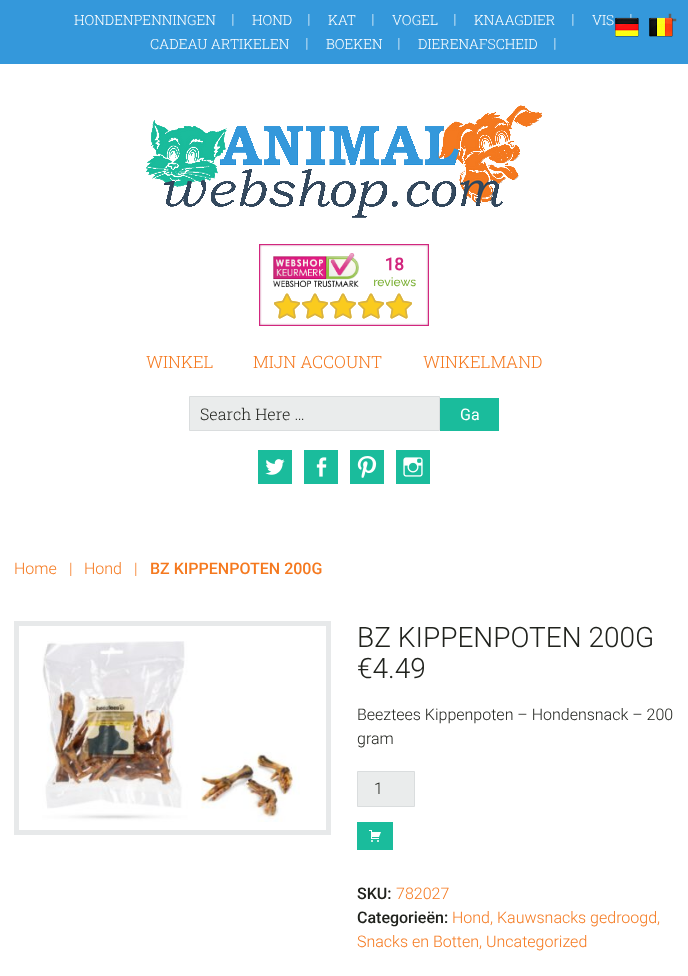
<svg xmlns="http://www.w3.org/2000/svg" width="688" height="976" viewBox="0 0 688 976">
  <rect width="100%" height="100%" fill="#fff"/>
  <path d="M0 0h688v64H0z" fill="#3498db"/>
  <image x="232" y="14" width="2" height="12" href="img/1.png"/>
  <image x="663" y="13" width="14" height="14" href="img/2.png"/>
  <image x="308" y="14" width="2" height="12" href="img/1.png"/>
  <image x="372" y="14" width="2" height="12" href="img/1.png"/>
  <image x="454" y="14" width="2" height="12" href="img/1.png"/>
  <image x="572" y="14" width="2" height="12" href="img/1.png"/>
  <image x="630" y="14" width="2" height="11" href="img/3.png"/>
  <image x="306" y="38" width="2" height="12" href="img/1.png"/>
  <image x="398" y="38" width="2" height="12" href="img/1.png"/>
  <image x="554" y="38" width="2" height="12" href="img/1.png"/>
  <image x="146" y="105" width="396" height="113" href="img/4.png"/>
  <image x="259" y="244" width="170" height="82" href="img/5.png"/>
  <path d="M189.5 396.5h250v34H189.5z" fill="#eaecec" stroke="#daddde"/>
  <path d="M440 398h59v33H440z" fill="#1abc9c"/>
  <path d="M258 450h34v34H258z" fill="#1abc9c"/>
  <image x="265" y="459" width="20" height="16" href="img/6.png"/>
  <path d="M304 450h34v34H304z" fill="#1abc9c"/>
  <image x="316" y="457" width="11" height="20" href="img/7.png"/>
  <path d="M350 450h34v34H350z" fill="#1abc9c"/>
  <image x="357" y="456" width="20" height="22" href="img/8.png"/>
  <path d="M396 450h34v34H396z" fill="#1abc9c"/>
  <image x="403" y="457" width="20" height="20" href="img/9.png"/>
  <path d="M16.5 623.5h312v209H16.5z" fill="none" stroke="#e7e9ea" stroke-width="5"/>
  <image x="42" y="641" width="258" height="181" href="img/10.png"/>
  <path d="M357.5 771.5h57v35H357.5z" fill="#eaecec" stroke="#daddde"/>
  <path d="M357 822h36v28H357z" fill="#1abc9c"/>
  <image x="369" y="830" width="12" height="12" href="img/11.png"/>
  <image x="615" y="17" width="24" height="20" href="img/12.png"/>
  <image x="649" y="17" width="24" height="20" href="img/13.png"/>
  <g font-family="Roboto Slab" font-size="14" font-weight="300" fill="#fff">
    <text x="74" y="25">HONDENPENNINGEN</text>
    <text x="252" y="25">HOND</text>
    <text x="328" y="25">KAT</text>
    <text x="392" y="25">VOGEL</text>
    <text x="474" y="25">KNAAGDIER</text>
    <text x="592" y="25">VIS</text>
    <text x="150" y="49">CADEAU ARTIKELEN</text>
    <text x="326" y="49">BOEKEN</text>
    <text x="418" y="49">DIERENAFSCHEID</text>
  </g>
  <g font-family="Roboto Slab" font-size="17" font-weight="300" fill="#f5791f">
    <text x="146" y="368">WINKEL</text>
    <text x="253" y="368">MIJN ACCOUNT</text>
    <text x="423" y="368">WINKELMAND</text>
  </g>
  <text x="200" y="420" font-family="Roboto Slab" font-size="16" font-weight="300" fill="#20221d">Search Here …</text>
  <text x="460" y="420" font-family="Roboto" font-size="16" fill="#fff">Ga</text>
  <g font-family="Roboto" font-size="16" font-weight="300" fill="#f5791f">
    <text x="14" y="574">Home</text>
    <text x="69" y="574">|</text>
    <text x="84" y="574">Hond</text>
    <text x="134" y="574">|</text>
  </g>
  <text x="150" y="574" font-family="Roboto" font-size="16" font-weight="500" fill="#f5791f">BZ KIPPENPOTEN 200G</text>
  <g font-family="Roboto" font-size="28" font-weight="300" fill="#20221d">
    <text x="357" y="647">BZ KIPPENPOTEN 200G</text>
    <text x="357" y="678">€4.49</text>
  </g>
  <g font-family="Roboto" font-size="16" font-weight="300" fill="#20221d">
    <text x="357" y="720">Beeztees Kippenpoten – Hondensnack – 200</text>
    <text x="357" y="744">gram</text>
    <text x="374" y="794">1</text>
  </g>
  <text x="357" y="899" font-family="Roboto" font-size="16" font-weight="500" fill="#20221d">SKU:</text>
  <text x="396" y="899" font-family="Roboto" font-size="16" font-weight="300" fill="#f5791f">782027</text>
  <text x="357" y="923" font-family="Roboto" font-size="16" font-weight="500" fill="#20221d">Categorieën:</text>
  <g font-family="Roboto" font-size="16" font-weight="300" fill="#f5791f">
    <text x="452" y="923">Hond, Kauwsnacks gedroogd,</text>
    <text x="357" y="947">Snacks en Botten, Uncategorized</text>
  </g>
</svg>
